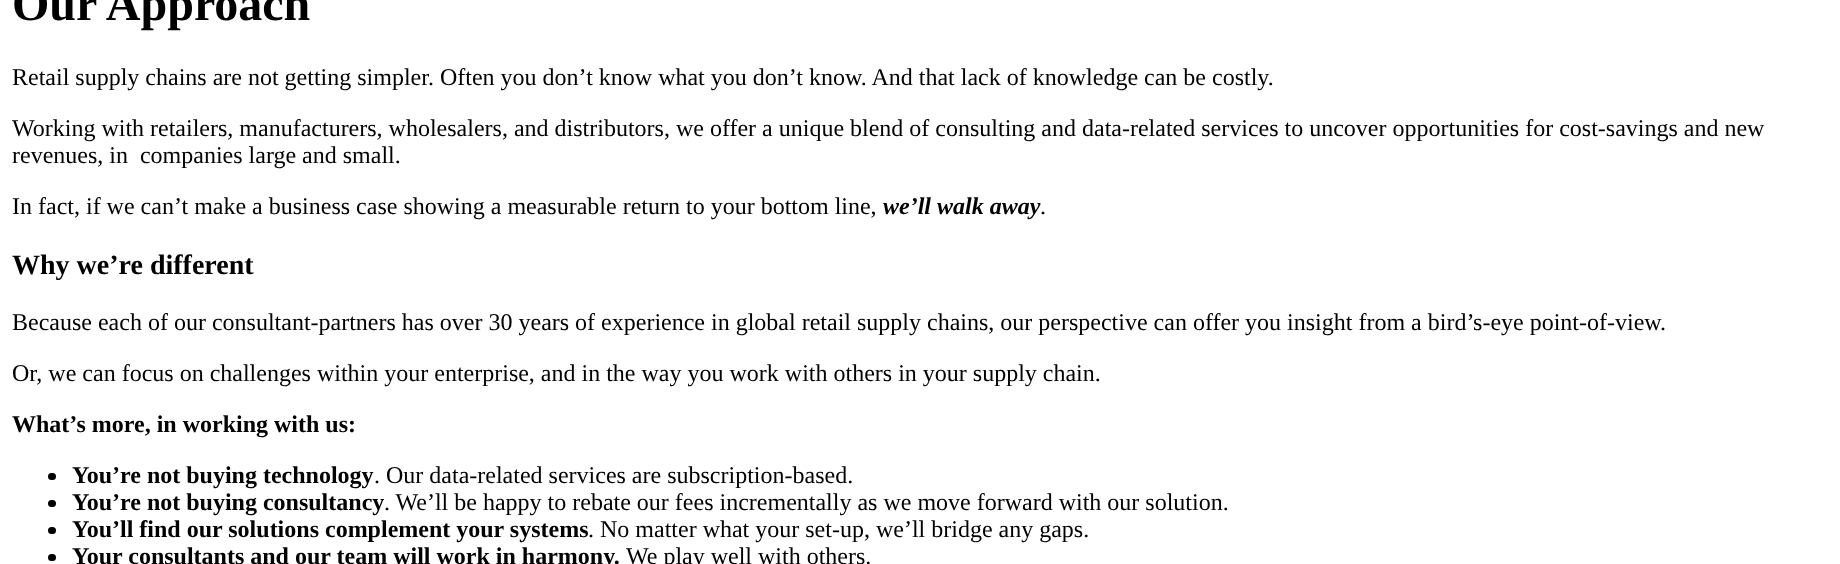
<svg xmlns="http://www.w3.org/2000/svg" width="1840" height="564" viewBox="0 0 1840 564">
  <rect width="100%" height="100%" fill="#fff"/>
  <rect x="48" y="473" width="8" height="7" rx="3.5" fill="#000"/>
  <rect x="48" y="500" width="8" height="7" rx="3.5" fill="#000"/>
  <rect x="48" y="527" width="8" height="7" rx="3.5" fill="#000"/>
  <rect x="48" y="554" width="8" height="7" rx="3.5" fill="#000"/>
  <text x="12" y="20" font-family="Liberation Serif" font-size="48" font-weight="bold" fill="#000">Our Approach</text>
  <g font-family="Liberation Serif" font-size="24" fill="#000">
    <text x="12" y="85">Retail supply chains are not getting simpler. Often you don’t know what you don’t know. And that lack of knowledge can be costly.</text>
    <text x="12" y="136">Working with retailers, manufacturers, wholesalers, and distributors, we offer a unique blend of consulting and data-related services to uncover opportunities for cost-savings and new</text>
    <text x="12" y="163" xml:space="preserve">revenues, in  companies large and small.</text>
    <text x="12" y="214">In fact, if we can’t make a business case showing a measurable return to your bottom line,</text>
  </g>
  <text x="883" y="214" font-family="Liberation Serif" font-size="24" font-weight="bold" font-style="italic" fill="#000">we’ll walk away</text>
  <text x="1040" y="214" font-family="Liberation Serif" font-size="24" fill="#000">.</text>
  <text x="12" y="274" font-family="Liberation Serif" font-size="28" font-weight="bold" fill="#000">Why we’re different</text>
  <g font-family="Liberation Serif" font-size="24" fill="#000">
    <text x="12" y="330">Because each of our consultant-partners has over 30 years of experience in global retail supply chains, our perspective can offer you insight from a bird’s-eye point-of-view.</text>
    <text x="12" y="381">Or, we can focus on challenges within your enterprise, and in the way you work with others in your supply chain.</text>
  </g>
  <g font-family="Liberation Serif" font-size="24" font-weight="bold" fill="#000">
    <text x="12" y="432">What’s more, in working with us:</text>
    <text x="72" y="483">You’re not buying technology</text>
  </g>
  <text x="374" y="483" font-family="Liberation Serif" font-size="24" fill="#000">. Our data-related services are subscription-based.</text>
  <text x="72" y="510" font-family="Liberation Serif" font-size="24" font-weight="bold" fill="#000">You’re not buying consultancy</text>
  <text x="384" y="510" font-family="Liberation Serif" font-size="24" fill="#000">. We’ll be happy to rebate our fees incrementally as we move forward with our solution.</text>
  <text x="72" y="537" font-family="Liberation Serif" font-size="24" font-weight="bold" fill="#000">You’ll find our solutions complement your systems</text>
  <text x="588" y="537" font-family="Liberation Serif" font-size="24" fill="#000">. No matter what your set-up, we’ll bridge any gaps.</text>
  <text x="72" y="564" font-family="Liberation Serif" font-size="24" font-weight="bold" fill="#000">Your consultants and our team will work in harmony.</text>
  <text x="626" y="564" font-family="Liberation Serif" font-size="24" fill="#000">We play well with others.</text>
</svg>
